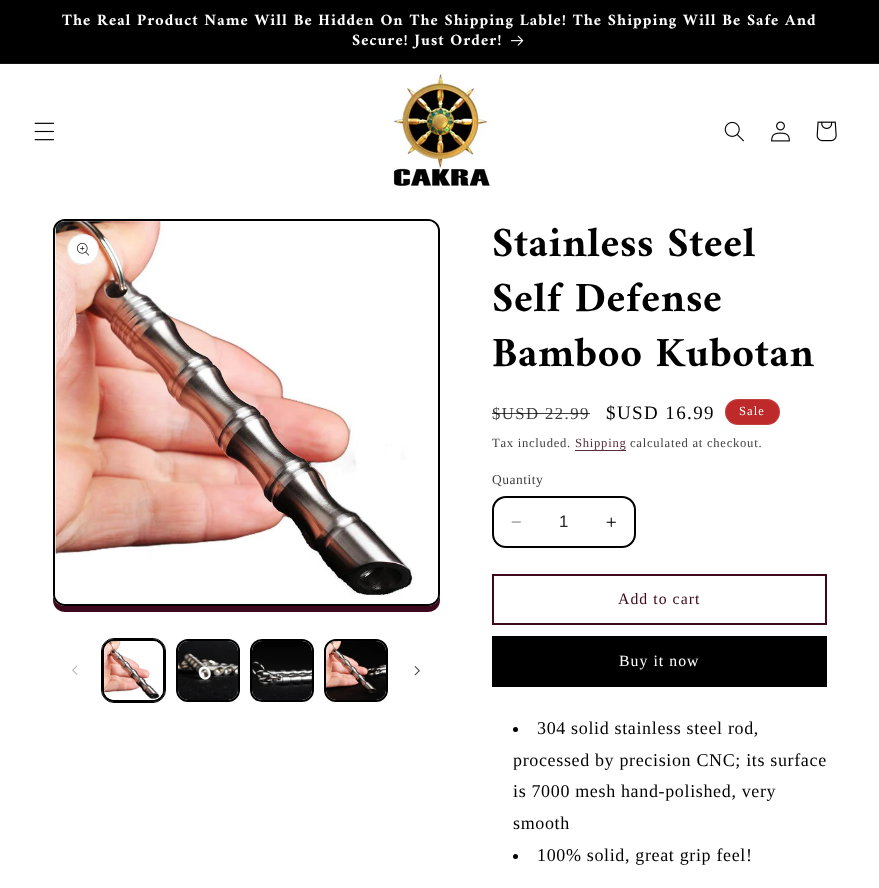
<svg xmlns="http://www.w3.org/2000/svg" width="879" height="888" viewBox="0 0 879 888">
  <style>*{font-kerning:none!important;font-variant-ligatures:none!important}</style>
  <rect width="100%" height="100%" fill="#fff"/>
  <path d="M0 0h879v63H0z" fill="#000"/>
  <path d="M0 63h879v1H0z" fill="#141414"/>
  <image x="511" y="35" width="13" height="11" href="img/1.png"/>
  <image x="34" y="122" width="20" height="19" href="img/2.png"/>
  <image x="392" y="71" width="100" height="116" href="img/3.png"/>
  <image x="724" y="121" width="20" height="21" href="img/4.png"/>
  <image x="771" y="121" width="19" height="21" href="img/5.png"/>
  <image x="816" y="121" width="21" height="21" href="img/6.png"/>
  <path d="M53 594V600C53 607 58 612 65 612H428C435 612 440 607 440 600V594C440 601 435 606 428 606H65C58 606 53 601 53 594Z" fill="#3d081b"/>
  <rect x="54" y="220" width="385" height="385" rx="11" fill="#fff" stroke="#000" stroke-width="2"/>
  <image x="55" y="221" width="383" height="383" href="img/7.png"/>
  <rect x="67" y="234" width="32" height="31" rx="15.5" fill="#fff"/>
  <rect x="67.5" y="234.5" width="31" height="30" rx="15" fill="none" stroke="#0000001a"/>
  <image x="77" y="243" width="12" height="13" href="img/8.png"/>
  <image x="72" y="665" width="6" height="10" href="img/9.png"/>
  <rect x="101.5" y="638.5" width="64" height="64" rx="12.5" fill="none" stroke="#000"/>
  <rect x="103" y="640" width="61" height="61" rx="11" fill="none" stroke="#000" stroke-width="2"/>
  <image x="104" y="641" width="59" height="59" href="img/10.png"/>
  <rect x="177" y="640" width="62" height="61" rx="11" fill="none" stroke="#000" stroke-width="2"/>
  <image x="178" y="641" width="60" height="59" href="img/11.png"/>
  <rect x="251" y="640" width="62" height="61" rx="11" fill="none" stroke="#000" stroke-width="2"/>
  <image x="252" y="641" width="60" height="59" href="img/12.png"/>
  <rect x="325" y="640" width="62" height="61" rx="11" fill="none" stroke="#000" stroke-width="2"/>
  <image x="326" y="641" width="60" height="59" href="img/13.png"/>
  <image x="414" y="666" width="6" height="10" href="img/14.png"/>
  <rect x="725" y="399" width="55" height="26" rx="13" fill="#be2a2a"/>
  <rect x="725.5" y="399.5" width="54" height="25" rx="12.5" fill="none" stroke="#ffffff1a"/>
  <path d="M575 450h51v1H575z" fill="#5a2d3d"/>
  <image x="511" y="521" width="10" height="2" href="img/15.png"/>
  <image x="606" y="517" width="10" height="10" href="img/16.png"/>
  <rect x="493" y="497" width="142" height="50" rx="13" fill="none" stroke="#000" stroke-width="2"/>
  <path d="M493 575h333v49H493z" fill="none" stroke="#3d081b" stroke-width="2"/>
  <path d="M492 636h335v51H492z" fill="#000"/>
  <circle cx="515.5" cy="729.5" r="2.5" fill="#000"/>
  <circle cx="515.5" cy="856.5" r="2.5" fill="#000"/>
  <g font-family="Amiri" font-size="16" font-weight="bold" letter-spacing="1.05" fill="#fff">
    <text x="62" y="25">The Real Product Name Will Be Hidden On The Shipping Lable! The Shipping Will Be Safe And</text>
    <text x="352" y="45">Secure! Just Order!</text>
  </g>
  <g font-family="Amiri" font-size="42" font-weight="bold" letter-spacing="0.65" fill="#000">
    <text x="492" y="256">Stainless Steel</text>
    <text x="492" y="311">Self Defense</text>
    <text x="492" y="366">Bamboo Kubotan</text>
  </g>
  <text x="492" y="419" font-family="Liberation Serif" font-size="16.75" letter-spacing="1.4" fill="#404040">$USD 22.99</text>
  <path d="M492 413h98v1H492z" fill="#000000bf"/>
  <text x="606" y="419" font-family="Liberation Serif" font-size="19" letter-spacing="1.4" fill="#000">$USD 16.99</text>
  <text x="739" y="415" font-family="Liberation Serif" font-size="12.6" letter-spacing="1.05" fill="#fff">Sale</text>
  <text x="492" y="447" font-family="Liberation Serif" font-size="12.6" letter-spacing="0.75" fill="#404040">Tax included.</text>
  <text x="575" y="447" font-family="Liberation Serif" font-size="12.6" letter-spacing="0.75" fill="#5a2d3d">Shipping</text>
  <text x="630" y="447" font-family="Liberation Serif" font-size="12.6" letter-spacing="0.75" fill="#404040">calculated at checkout.</text>
  <text x="492" y="484" font-family="Liberation Serif" font-size="13.5" letter-spacing="0.5" fill="#404040">Quantity</text>
  <text x="559" y="527" font-family="Liberation Sans" font-size="16.75" fill="#262626">1</text>
  <text x="618" y="604" font-family="Liberation Serif" font-size="15.75" letter-spacing="1.05" fill="#3d081b">Add to cart</text>
  <text x="619" y="666" font-family="Liberation Serif" font-size="15.75" letter-spacing="1.05" fill="#fff">Buy it now</text>
  <g font-family="Liberation Serif" font-size="18" letter-spacing="0.65" fill="#000">
    <text x="537" y="734">304 solid stainless steel rod,</text>
    <text x="513" y="766">processed by precision CNC; its surface</text>
    <text x="513" y="797">is 7000 mesh hand-polished, very</text>
    <text x="513" y="829">smooth</text>
    <text x="537" y="861">100% solid, great grip feel!</text>
  </g>
</svg>
